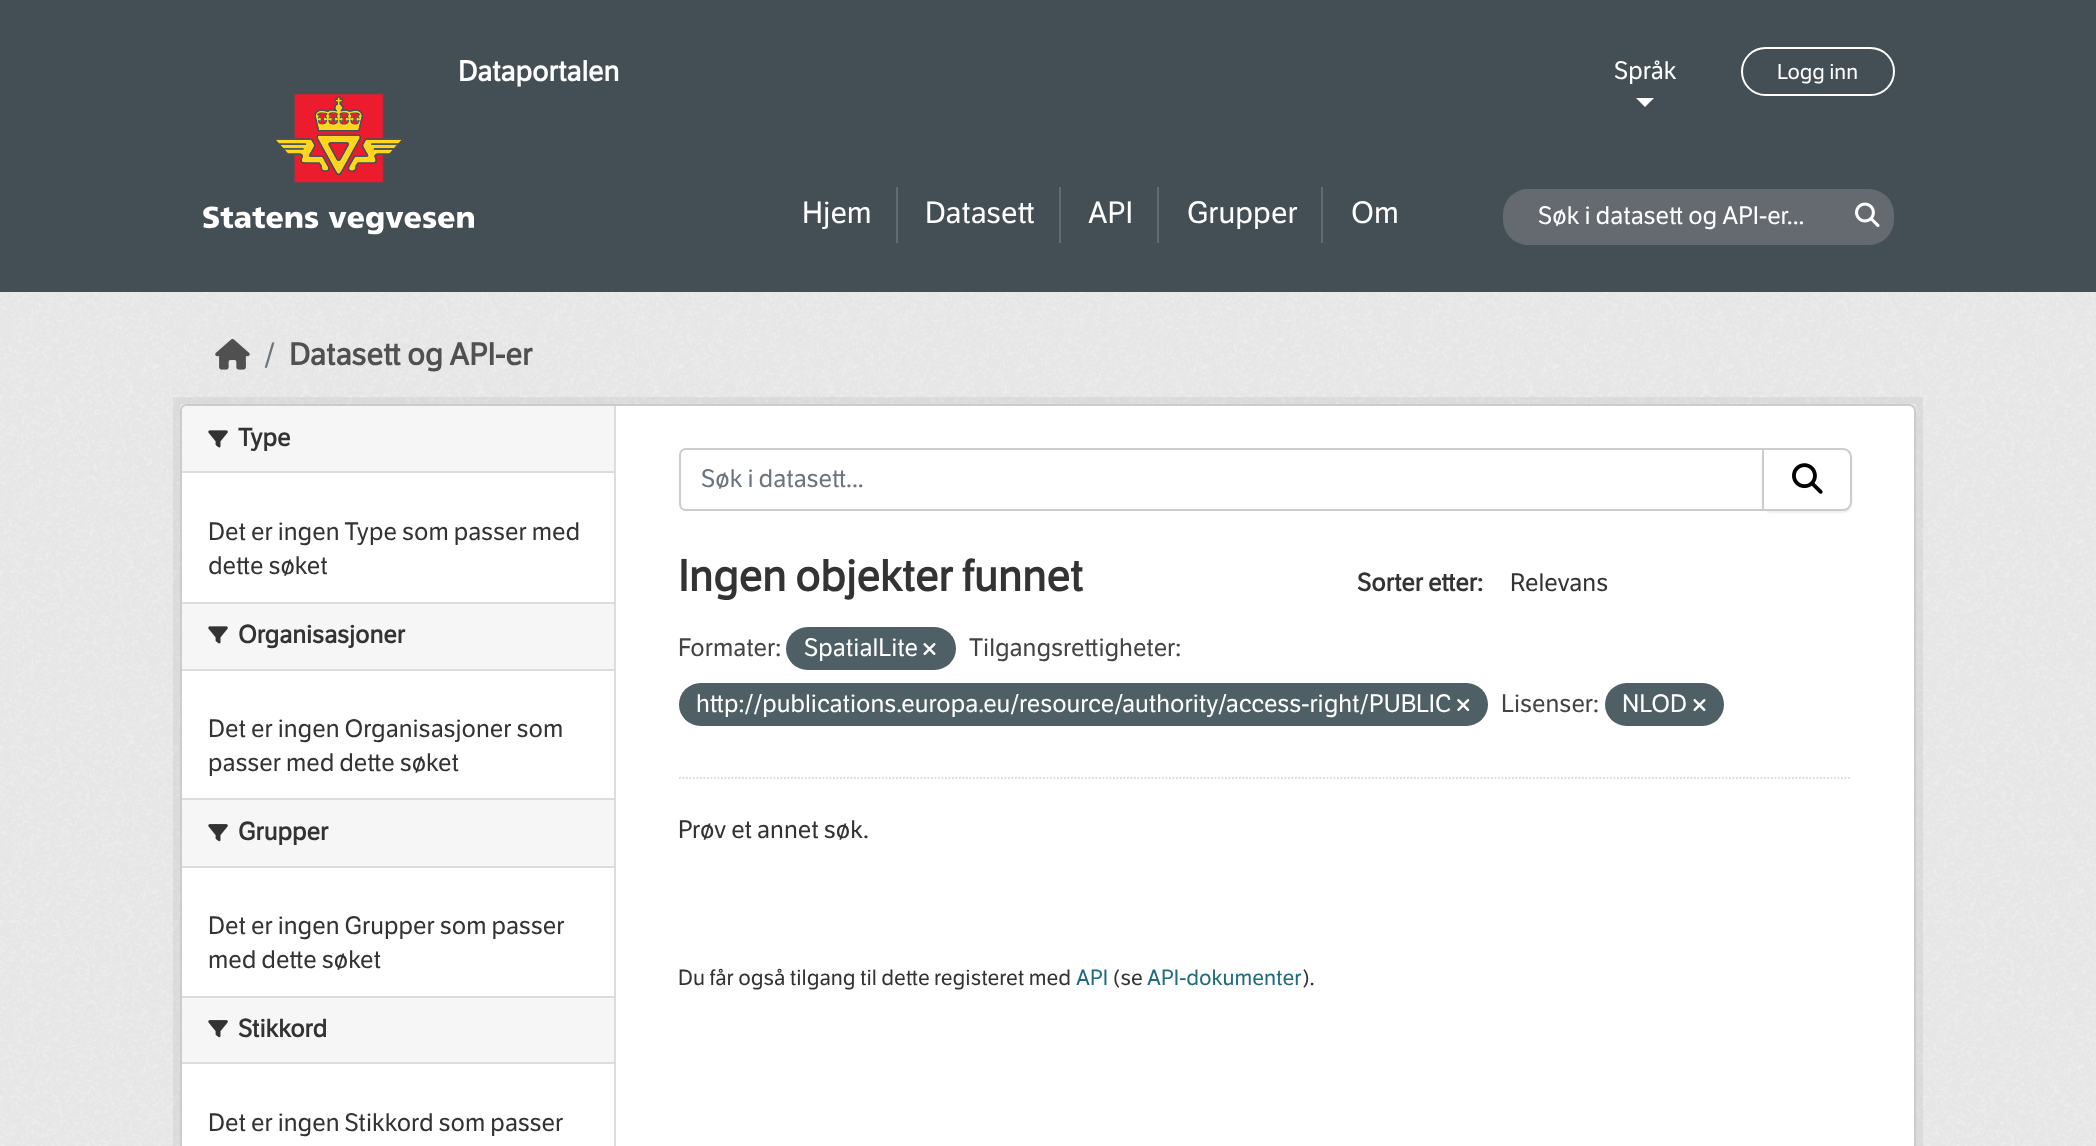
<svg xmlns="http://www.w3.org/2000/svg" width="2096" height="1146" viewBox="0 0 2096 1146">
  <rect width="100%" height="100%" fill="#444f55"/>
  <image x="203" y="93" width="271" height="142" href="img/1.png"/>
  <path d="M1636 98H1654L1645 107Z" fill="#fff"/>
  <rect x="1742" y="48" width="152" height="47" rx="23.5" fill="none" stroke="#fff" stroke-width="2"/>
  <path d="M896 187h2v56H896z" fill="#646a70"/>
  <path d="M1059 187h2v56H1059z" fill="#646a70"/>
  <path d="M1157 187h2v56H1157z" fill="#646a70"/>
  <path d="M1321 187h2v56H1321z" fill="#646a70"/>
  <rect x="1503" y="189" width="391" height="56" rx="25" fill="#646a70"/>
  <image x="1855" y="202" width="25" height="25" href="img/2.png"/>
  <path d="M0 292h2096v854H0z" fill="#eee"/>
  <image x="0" y="292" width="2096" height="854" href="img/3.png"/>
  <image x="215" y="339" width="35" height="31" href="img/4.png"/>
  <path d="M176.5 400.5h1743v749H176.5z" fill="none" stroke="#0000000d" stroke-width="7"/>
  <rect x="181" y="405" width="1734" height="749" rx="6" fill="#fff" stroke="#ccc" stroke-width="2"/>
  <path d="M187 406H614V473H182V411C182 408 184 406 187 406Z" fill="#f6f6f6"/>
  <path d="M182 471h432v2H182z" fill="#ddd"/>
  <image x="208" y="430" width="20" height="18" href="img/5.png"/>
  <path d="M182 604h432v65H182z" fill="#f6f6f6"/>
  <path d="M182 602h432v2H182z" fill="#ddd"/>
  <path d="M182 669h432v2H182z" fill="#ddd"/>
  <image x="208" y="626" width="20" height="18" href="img/5.png"/>
  <path d="M182 800h432v66H182z" fill="#f6f6f6"/>
  <path d="M182 798h432v2H182z" fill="#ddd"/>
  <path d="M182 866h432v2H182z" fill="#ddd"/>
  <image x="208" y="824" width="20" height="18" href="img/6.png"/>
  <path d="M182 998h432v64H182z" fill="#f6f6f6"/>
  <path d="M182 996h432v2H182z" fill="#ddd"/>
  <path d="M182 1062h432v2H182z" fill="#ddd"/>
  <image x="208" y="1020" width="20" height="18" href="img/6.png"/>
  <path d="M614 406h2v740H614z" fill="#ddd"/>
  <path d="M679 778H1851.5" fill="none" stroke="#ddd" stroke-width="1.8" stroke-dasharray="1.75 1.75"/>
  <path d="M686 449H1763V510H686C682.5 510 680 507.5 680 504V455C680 451.5 682.5 449 686 449Z" fill="none" stroke="#ccc" stroke-width="2"/>
  <rect x="1762" y="450" width="90" height="63" rx="9" fill="#00000012" filter="blur(1px)"/>
  <path d="M1763 449H1843C1847.5 449 1851 452.5 1851 457V502C1851 506.5 1847.5 510 1843 510H1763Z" fill="#fff" stroke="#ccc" stroke-width="2"/>
  <image x="1792" y="463" width="31" height="31" href="img/7.png"/>
  <rect x="786" y="627" width="170" height="43" rx="21.5" fill="#4e5f65"/>
  <image x="923" y="643" width="13" height="12" href="img/8.png"/>
  <rect x="679" y="683" width="809" height="43" rx="21.5" fill="#4e5f65"/>
  <image x="1457" y="699" width="13" height="12" href="img/9.png"/>
  <rect x="1605" y="683" width="119" height="43" rx="21.5" fill="#4e5f65"/>
  <image x="1693" y="699" width="13" height="12" href="img/8.png"/>
  <text x="458" y="81" font-family="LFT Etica" font-size="28" font-weight="bold" fill="#fff">Dataportalen</text>
  <text x="1614" y="79" font-family="LFT Etica" font-size="24.5" fill="#fff">Språk</text>
  <text x="1777" y="79" font-family="LFT Etica" font-size="21" fill="#fff">Logg inn</text>
  <g font-family="LFT Etica" font-size="30" fill="#fff">
    <text x="802" y="223">Hjem</text>
    <text x="925" y="223">Datasett</text>
    <text x="1088" y="223">API</text>
    <text x="1187" y="223">Grupper</text>
    <text x="1351" y="223">Om</text>
  </g>
  <text x="1538" y="224" font-family="LFT Etica" font-size="24.5" fill="#fff">Søk i datasett og API-er...</text>
  <text x="264" y="365" font-family="LFT Etica" font-size="30.5" fill="#6c757d">/</text>
  <text x="289" y="365" font-family="LFT Etica" font-size="30.5" font-weight="bold" fill="#505050">Datasett og API-er</text>
  <text x="238" y="446" font-family="LFT Etica" font-size="24.5" font-weight="bold" fill="#333">Type</text>
  <g font-family="LFT Etica" font-size="24.5" fill="#333">
    <text x="208" y="540">Det er ingen Type som passer med</text>
    <text x="208" y="574">dette søket</text>
  </g>
  <text x="238" y="643" font-family="LFT Etica" font-size="24.5" font-weight="bold" fill="#333">Organisasjoner</text>
  <g font-family="LFT Etica" font-size="24.5" fill="#333">
    <text x="208" y="737">Det er ingen Organisasjoner som</text>
    <text x="208" y="771">passer med dette søket</text>
  </g>
  <text x="238" y="840" font-family="LFT Etica" font-size="24.5" font-weight="bold" fill="#333">Grupper</text>
  <g font-family="LFT Etica" font-size="24.5" fill="#333">
    <text x="208" y="934">Det er ingen Grupper som passer</text>
    <text x="208" y="968">med dette søket</text>
  </g>
  <text x="238" y="1037" font-family="LFT Etica" font-size="24.5" font-weight="bold" fill="#333">Stikkord</text>
  <text x="208" y="1131" font-family="LFT Etica" font-size="24.5" fill="#333">Det er ingen Stikkord som passer</text>
  <text x="701" y="487" font-family="LFT Etica" font-size="24.5" fill="#6c757d">Søk i datasett...</text>
  <text x="678" y="591" font-family="LFT Etica" font-size="42.9" font-weight="bold" fill="#333">Ingen objekter funnet</text>
  <text x="1357" y="591" font-family="LFT Etica" font-size="24.5" font-weight="bold" fill="#333">Sorter etter:</text>
  <text x="1510" y="591" font-family="LFT Etica" font-size="24.5" fill="#333">Relevans</text>
  <text x="678" y="656" font-family="LFT Etica" font-size="24.5" fill="#444">Formater:</text>
  <text x="804" y="656" font-family="LFT Etica" font-size="24.5" fill="#fff">SpatialLite</text>
  <text x="969" y="656" font-family="LFT Etica" font-size="24.5" fill="#444">Tilgangsrettigheter:</text>
  <text x="696" y="712" font-family="LFT Etica" font-size="24.5" fill="#fff">http://publications.europa.eu/resource/authority/access-right/PUBLIC</text>
  <text x="1501" y="712" font-family="LFT Etica" font-size="24.5" fill="#444">Lisenser:</text>
  <text x="1622" y="712" font-family="LFT Etica" font-size="24.5" fill="#fff">NLOD</text>
  <text x="678" y="838" font-family="LFT Etica" font-size="24.5" fill="#333">Prøv et annet søk.</text>
  <text x="678" y="985" font-family="LFT Etica" font-size="21.4" fill="#333">Du får også tilgang til dette registeret med</text>
  <text x="1076" y="985" font-family="LFT Etica" font-size="21.4" fill="#206b82">API</text>
  <text x="1113" y="985" font-family="LFT Etica" font-size="21.4" fill="#333">(se</text>
  <text x="1147" y="985" font-family="LFT Etica" font-size="21.4" fill="#206b82">API-dokumenter</text>
  <text x="1302" y="985" font-family="LFT Etica" font-size="21.4" fill="#333">).</text>
</svg>
